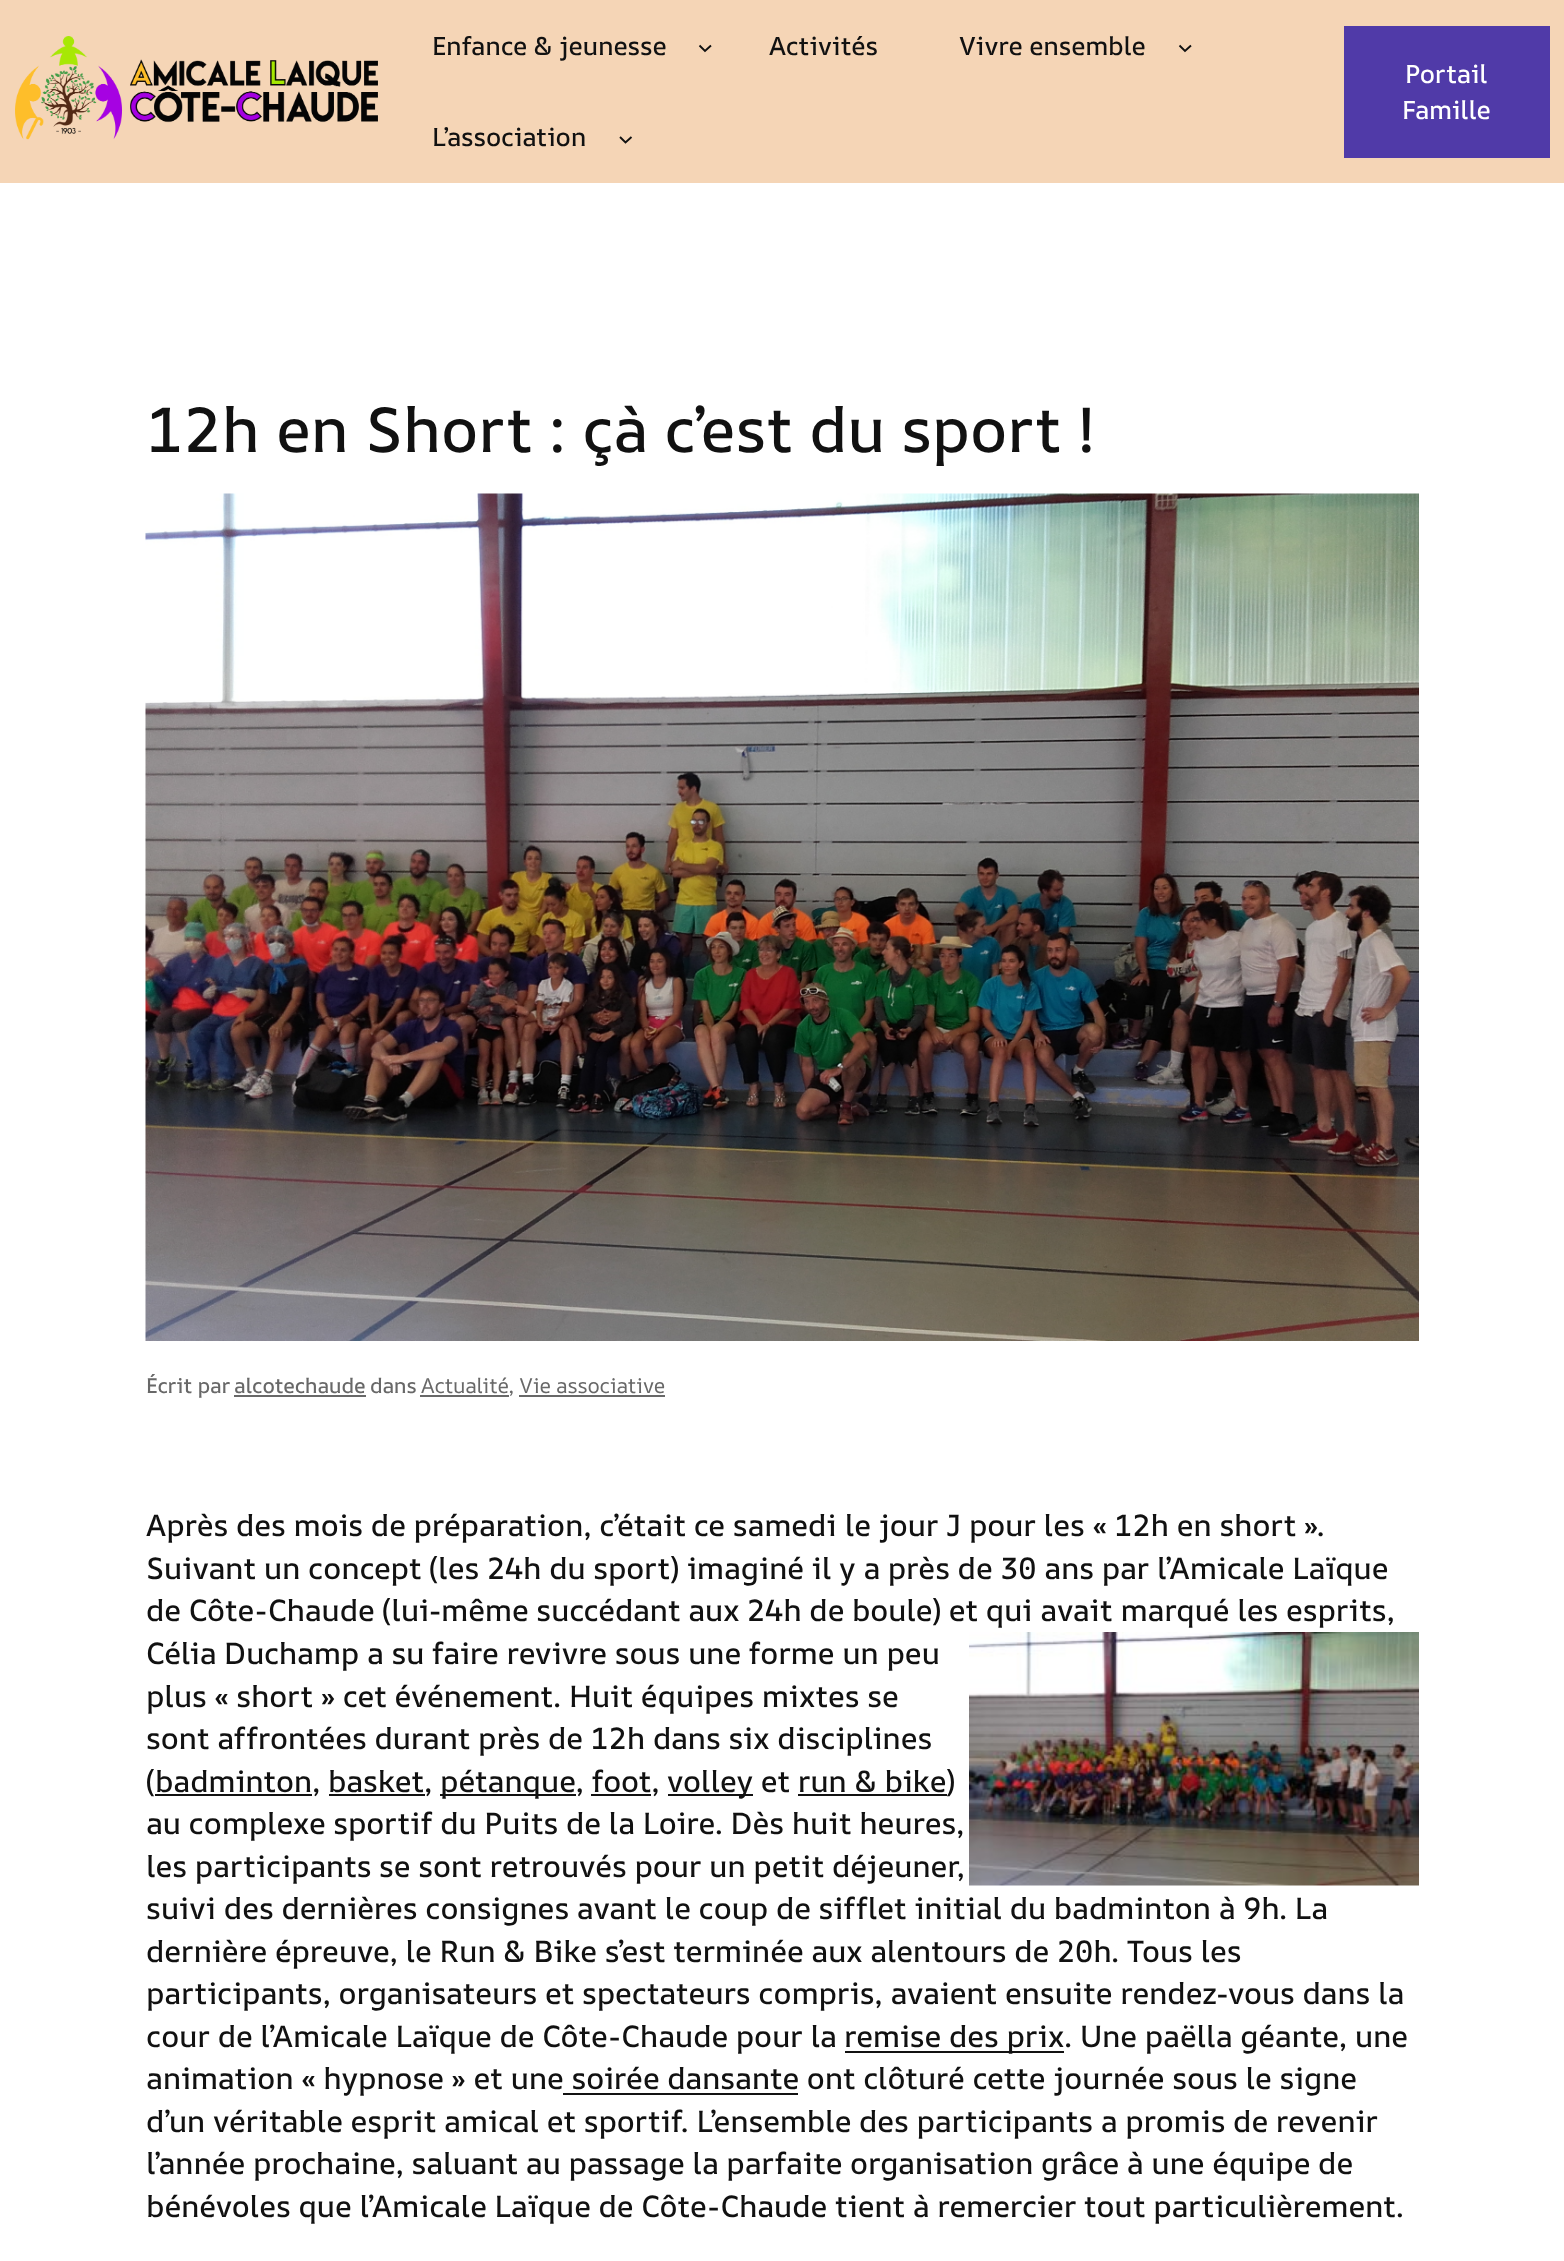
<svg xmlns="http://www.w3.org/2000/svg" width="1564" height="2261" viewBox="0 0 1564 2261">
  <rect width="100%" height="100%" fill="#fff"/>
  <path d="M0 0h1564v183H0z" fill="#f5d5b6"/>
  <image x="15" y="36" width="363" height="104" href="img/1.png"/>
  <path d="M699.5 45.5L705 51L711 45.5" fill="none" stroke="#111" stroke-width="1.9"/>
  <path d="M1179.5 45.5L1185 51L1191 45.5" fill="none" stroke="#111" stroke-width="1.9"/>
  <path d="M620 137L625.5 142.5L631.5 137" fill="none" stroke="#111" stroke-width="1.9"/>
  <path d="M1344 26h206v132H1344z" fill="#503aa8"/>
  <image x="145" y="493" width="1274" height="848" href="img/2.png"/>
  <path d="M234 1395h132v2H234z" fill="#686868"/>
  <path d="M420 1395h89v2H420z" fill="#686868"/>
  <path d="M519 1395h146v2H519z" fill="#686868"/>
  <image x="969" y="1632" width="450" height="254" href="img/3.png"/>
  <path d="M155 1794h157v2H155z" fill="#111"/>
  <path d="M440 1794h136v2H440z" fill="#111"/>
  <path d="M668 1794h85v2H668z" fill="#111"/>
  <path d="M329 1794h96v2H329z" fill="#111"/>
  <path d="M591 1794h60v2H591z" fill="#111"/>
  <path d="M798 1794h149v2H798z" fill="#111"/>
  <path d="M845 2051h219v2H845z" fill="#111"/>
  <path d="M563 2093h235v2H563z" fill="#111"/>
  <g font-family="AR One Sans" font-size="25.75" font-weight="500" letter-spacing="-0.15" fill="#111">
    <text x="432" y="55">Enfance &amp; jeunesse</text>
    <text x="769" y="55">Activités</text>
    <text x="959" y="55">Vivre ensemble</text>
    <text x="432" y="146">L’association</text>
  </g>
  <g font-family="AR One Sans" font-size="25.75" font-weight="500" letter-spacing="-0.15" fill="#fff">
    <text x="1405" y="83">Portail</text>
    <text x="1402" y="119">Famille</text>
  </g>
  <text x="146" y="452" font-family="AR One Sans" font-size="63.1" font-weight="500" letter-spacing="-0.15" fill="#111">12h en Short : çà c’est du sport !</text>
  <g font-family="AR One Sans" font-size="21" font-weight="500" letter-spacing="-0.15" fill="#686868">
    <text x="146" y="1393">Écrit par</text>
    <text x="234" y="1393">alcotechaude</text>
    <text x="370" y="1393">dans</text>
  </g>
  <text x="421" y="1393" font-family="AR One Sans" font-size="21" letter-spacing="-0.15" fill="#686868">Actualité, Vie associative</text>
  <g font-family="AR One Sans" font-size="30.4" font-weight="500" letter-spacing="-0.15" fill="#111">
    <text x="146" y="1536">Après des mois de préparation, c’était ce samedi le jour J pour les « 12h en short ».</text>
    <text x="146" y="1579">Suivant un concept (les 24h du sport) imaginé il y a près de 30 ans par l’Amicale Laïque</text>
    <text x="146" y="1621">de Côte-Chaude (lui-même succédant aux 24h de boule) et qui avait marqué les esprits,</text>
    <text x="146" y="1664">Célia Duchamp a su faire revivre sous une forme un peu</text>
    <text x="146" y="1707">plus « short » cet événement. Huit équipes mixtes se</text>
    <text x="146" y="1749">sont affrontées durant près de 12h dans six disciplines</text>
    <text x="146" y="1792">(</text>
    <text x="155" y="1792">badminton, basket,</text>
    <text x="440" y="1792">pétanque, foot,</text>
    <text x="667" y="1792">volley et run &amp; bike</text>
    <text x="946" y="1792">)</text>
    <text x="146" y="1834">au complexe sportif du Puits de la Loire. Dès huit heures,</text>
    <text x="146" y="1877">les participants se sont retrouvés pour un petit déjeuner,</text>
    <text x="146" y="1919">suivi des dernières consignes avant le coup de sifflet initial du badminton à 9h. La</text>
    <text x="146" y="1962">dernière épreuve, le Run &amp; Bike s’est terminée aux alentours de 20h. Tous les</text>
    <text x="146" y="2004">participants, organisateurs et spectateurs compris, avaient ensuite rendez-vous dans la</text>
    <text x="146" y="2047">cour de l’Amicale Laïque de Côte-Chaude pour la</text>
    <text x="844" y="2047">remise des prix. Une paëlla géante, une</text>
    <text x="146" y="2089">animation « hypnose » et une soirée dansante ont clôturé cette journée sous le signe</text>
    <text x="146" y="2132">d’un véritable esprit amical et sportif. L’ensemble des participants a promis de revenir</text>
    <text x="146" y="2174">l’année prochaine, saluant au passage la parfaite organisation grâce à une équipe de</text>
    <text x="146" y="2217">bénévoles que l’Amicale Laïque de Côte-Chaude tient à remercier tout particulièrement.</text>
  </g>
</svg>
